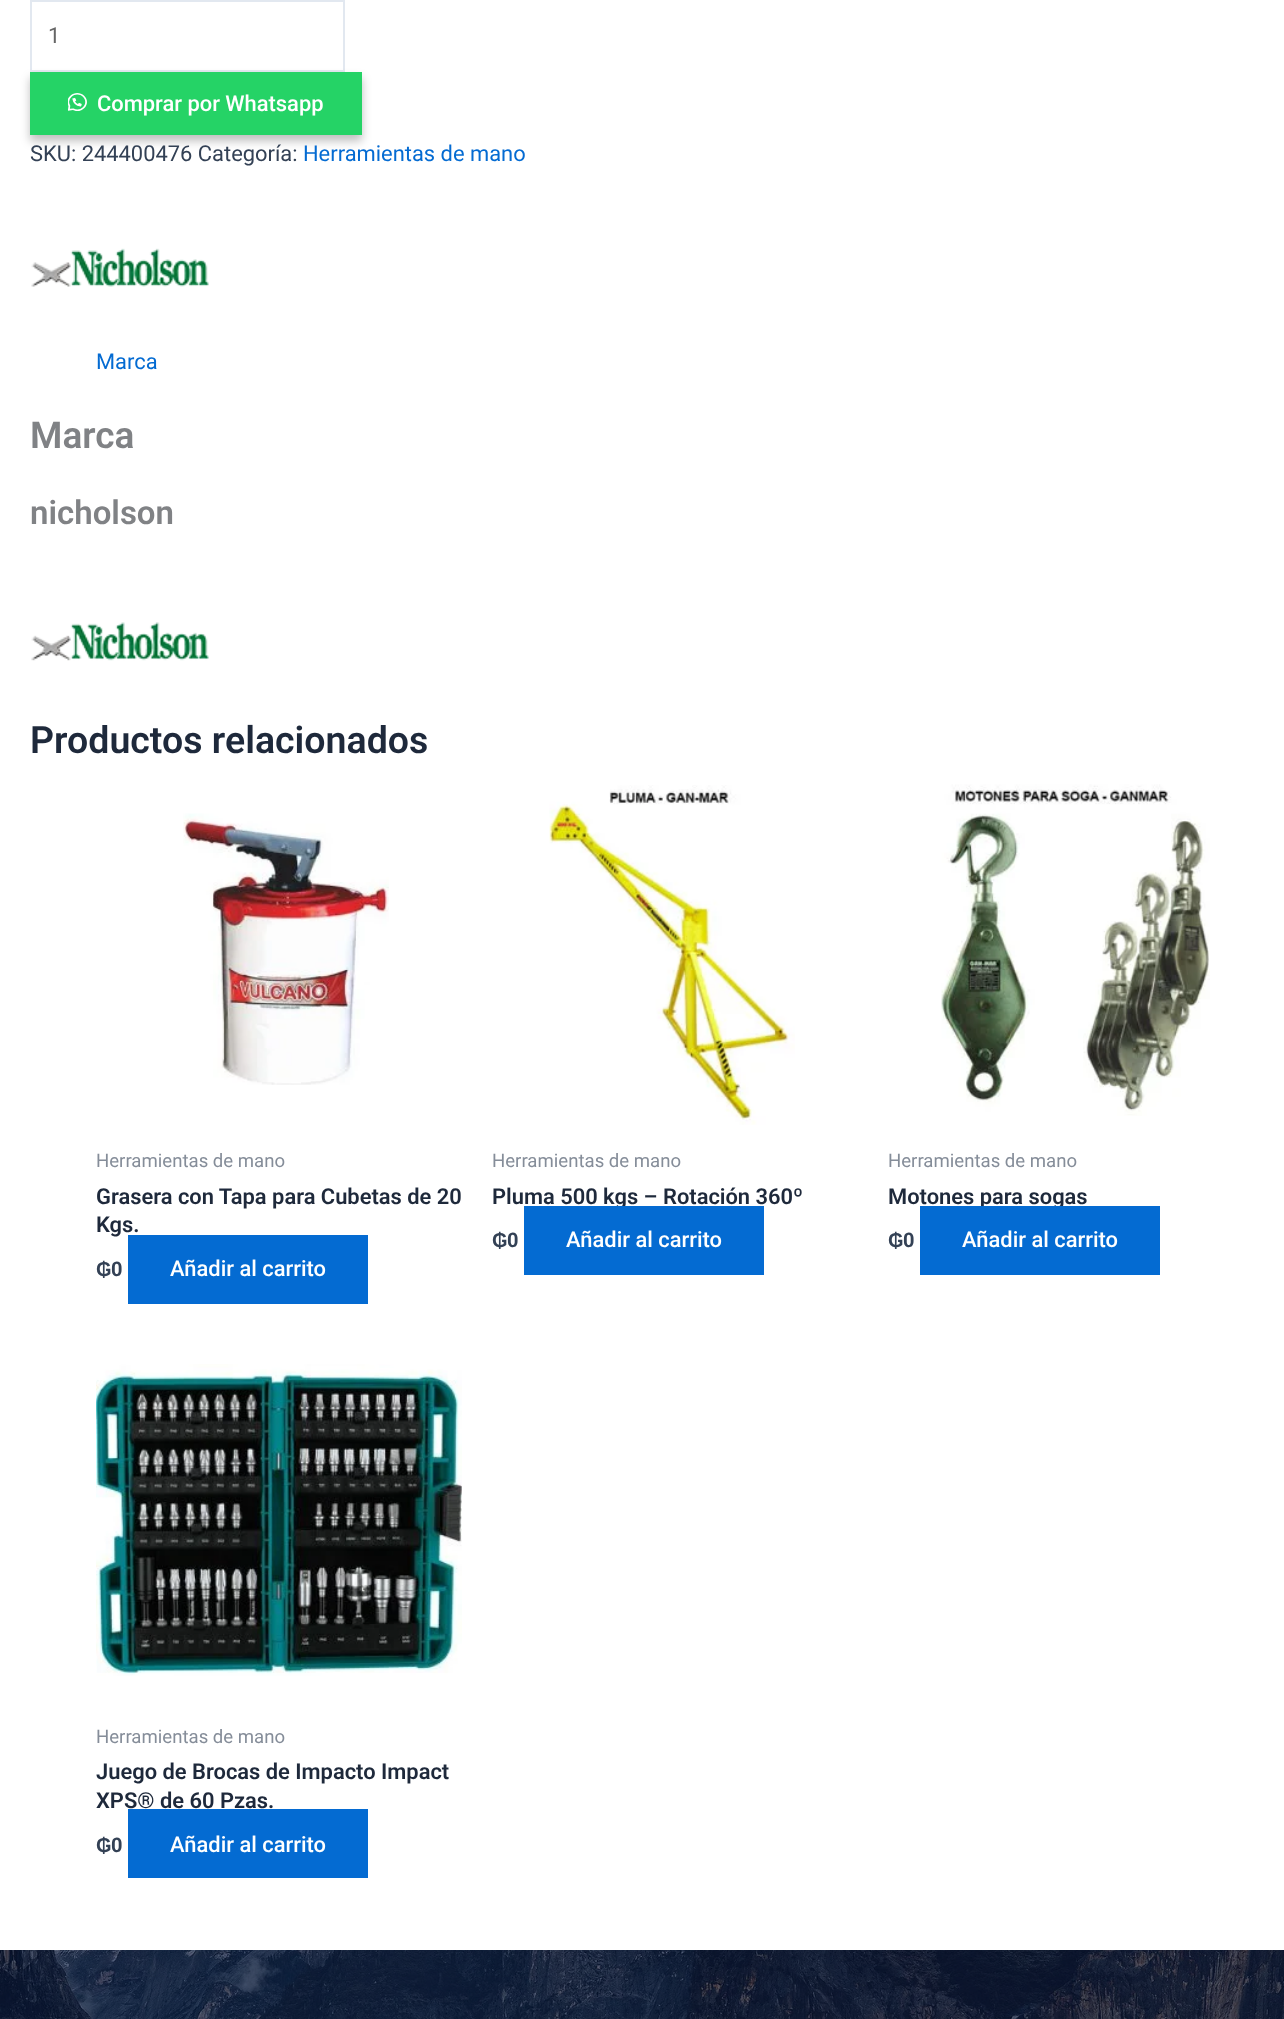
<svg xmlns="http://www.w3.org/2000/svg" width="1284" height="2019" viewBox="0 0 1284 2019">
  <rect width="100%" height="100%" fill="#fff"/>
  <path d="M31 1h313v70H31z" fill="none" stroke="#e2e8f0" stroke-width="2"/>
  <path d="M30 78h332v63H30z" fill="#00000040" filter="blur(5px)"/>
  <path d="M30 72h332v63H30z" fill="#25d366"/>
  <image x="68" y="93" width="19" height="18" href="img/1.png"/>
  <image x="31" y="248" width="178" height="39" href="img/2.png"/>
  <image x="31" y="622" width="178" height="39" href="img/3.png"/>
  <image x="183" y="813" width="206" height="272" href="img/4.png"/>
  <image x="549" y="785" width="246" height="340" href="img/5.png"/>
  <image x="941" y="784" width="269" height="332" href="img/6.png"/>
  <image x="96" y="1364" width="366" height="312" href="img/7.png"/>
  <path d="M128 1809h240v69H128z" fill="#046bd2"/>
  <image x="0" y="1950" width="1284" height="69" href="img/8.png"/>
  <text x="48" y="43" font-family="Roboto" font-size="21.9" fill="#666">1</text>
  <text x="97" y="111" font-family="Roboto" font-size="21.9" font-weight="500" fill="#fff">Comprar por Whatsapp</text>
  <text x="30" y="161" font-family="Roboto" font-size="21.9" fill="#334155">SKU: 244400476 Categoría:</text>
  <g font-family="Roboto" font-size="21.9" fill="#046bd2">
    <text x="303" y="161">Herramientas de mano</text>
    <text x="96" y="369">Marca</text>
  </g>
  <text x="30" y="448" font-family="Roboto" font-size="37" font-weight="600" fill="#808285">Marca</text>
  <text x="30" y="524" font-family="Roboto" font-size="33" font-weight="600" fill="#808285">nicholson</text>
  <text x="30" y="753" font-family="Roboto" font-size="37.5" font-weight="600" fill="#1e293b">Productos relacionados</text>
  <text x="96" y="1167" font-family="Roboto" font-size="18.6" fill="#858d99">Herramientas de mano</text>
  <g font-family="Roboto" font-size="21.9" font-weight="600" fill="#1e293b">
    <text x="96" y="1204">Grasera con Tapa para Cubetas de 20</text>
    <text x="96" y="1232">Kgs.</text>
  </g>
  <text x="96" y="1276" font-family="Liberation Sans" font-size="20" font-weight="bold" fill="#334155">₲</text>
  <text x="111" y="1276" font-family="Roboto" font-size="20" font-weight="bold" fill="#334155">0</text>
  <path d="M128 1235h240v69H128z" fill="#046bd2"/>
  <text x="170" y="1276" font-family="Roboto" font-size="21.9" font-weight="500" fill="#fff">Añadir al carrito</text>
  <text x="492" y="1167" font-family="Roboto" font-size="18.6" fill="#858d99">Herramientas de mano</text>
  <text x="492" y="1204" font-family="Roboto" font-size="21.9" font-weight="600" fill="#1e293b">Pluma 500 kgs – Rotación 360º</text>
  <text x="492" y="1247" font-family="Liberation Sans" font-size="20" font-weight="bold" fill="#334155">₲</text>
  <text x="507" y="1247" font-family="Roboto" font-size="20" font-weight="bold" fill="#334155">0</text>
  <path d="M524 1206h240v69H524z" fill="#046bd2"/>
  <text x="566" y="1247" font-family="Roboto" font-size="21.9" font-weight="500" fill="#fff">Añadir al carrito</text>
  <text x="888" y="1167" font-family="Roboto" font-size="18.6" fill="#858d99">Herramientas de mano</text>
  <text x="888" y="1204" font-family="Roboto" font-size="21.9" font-weight="600" fill="#1e293b">Motones para sogas</text>
  <text x="888" y="1247" font-family="Liberation Sans" font-size="20" font-weight="bold" fill="#334155">₲</text>
  <text x="903" y="1247" font-family="Roboto" font-size="20" font-weight="bold" fill="#334155">0</text>
  <path d="M920 1206h240v69H920z" fill="#046bd2"/>
  <text x="962" y="1247" font-family="Roboto" font-size="21.9" font-weight="500" fill="#fff">Añadir al carrito</text>
  <text x="96" y="1743" font-family="Roboto" font-size="18.6" fill="#858d99">Herramientas de mano</text>
  <g font-family="Roboto" font-size="21.9" font-weight="600" fill="#1e293b">
    <text x="96" y="1779">Juego de Brocas de Impacto Impact</text>
    <text x="96" y="1808">XPS® de 60 Pzas.</text>
  </g>
  <text x="96" y="1852" font-family="Liberation Sans" font-size="20" font-weight="bold" fill="#334155">₲</text>
  <text x="111" y="1852" font-family="Roboto" font-size="20" font-weight="bold" fill="#334155">0</text>
  <text x="170" y="1852" font-family="Roboto" font-size="21.9" font-weight="500" fill="#fff">Añadir al carrito</text>
</svg>
